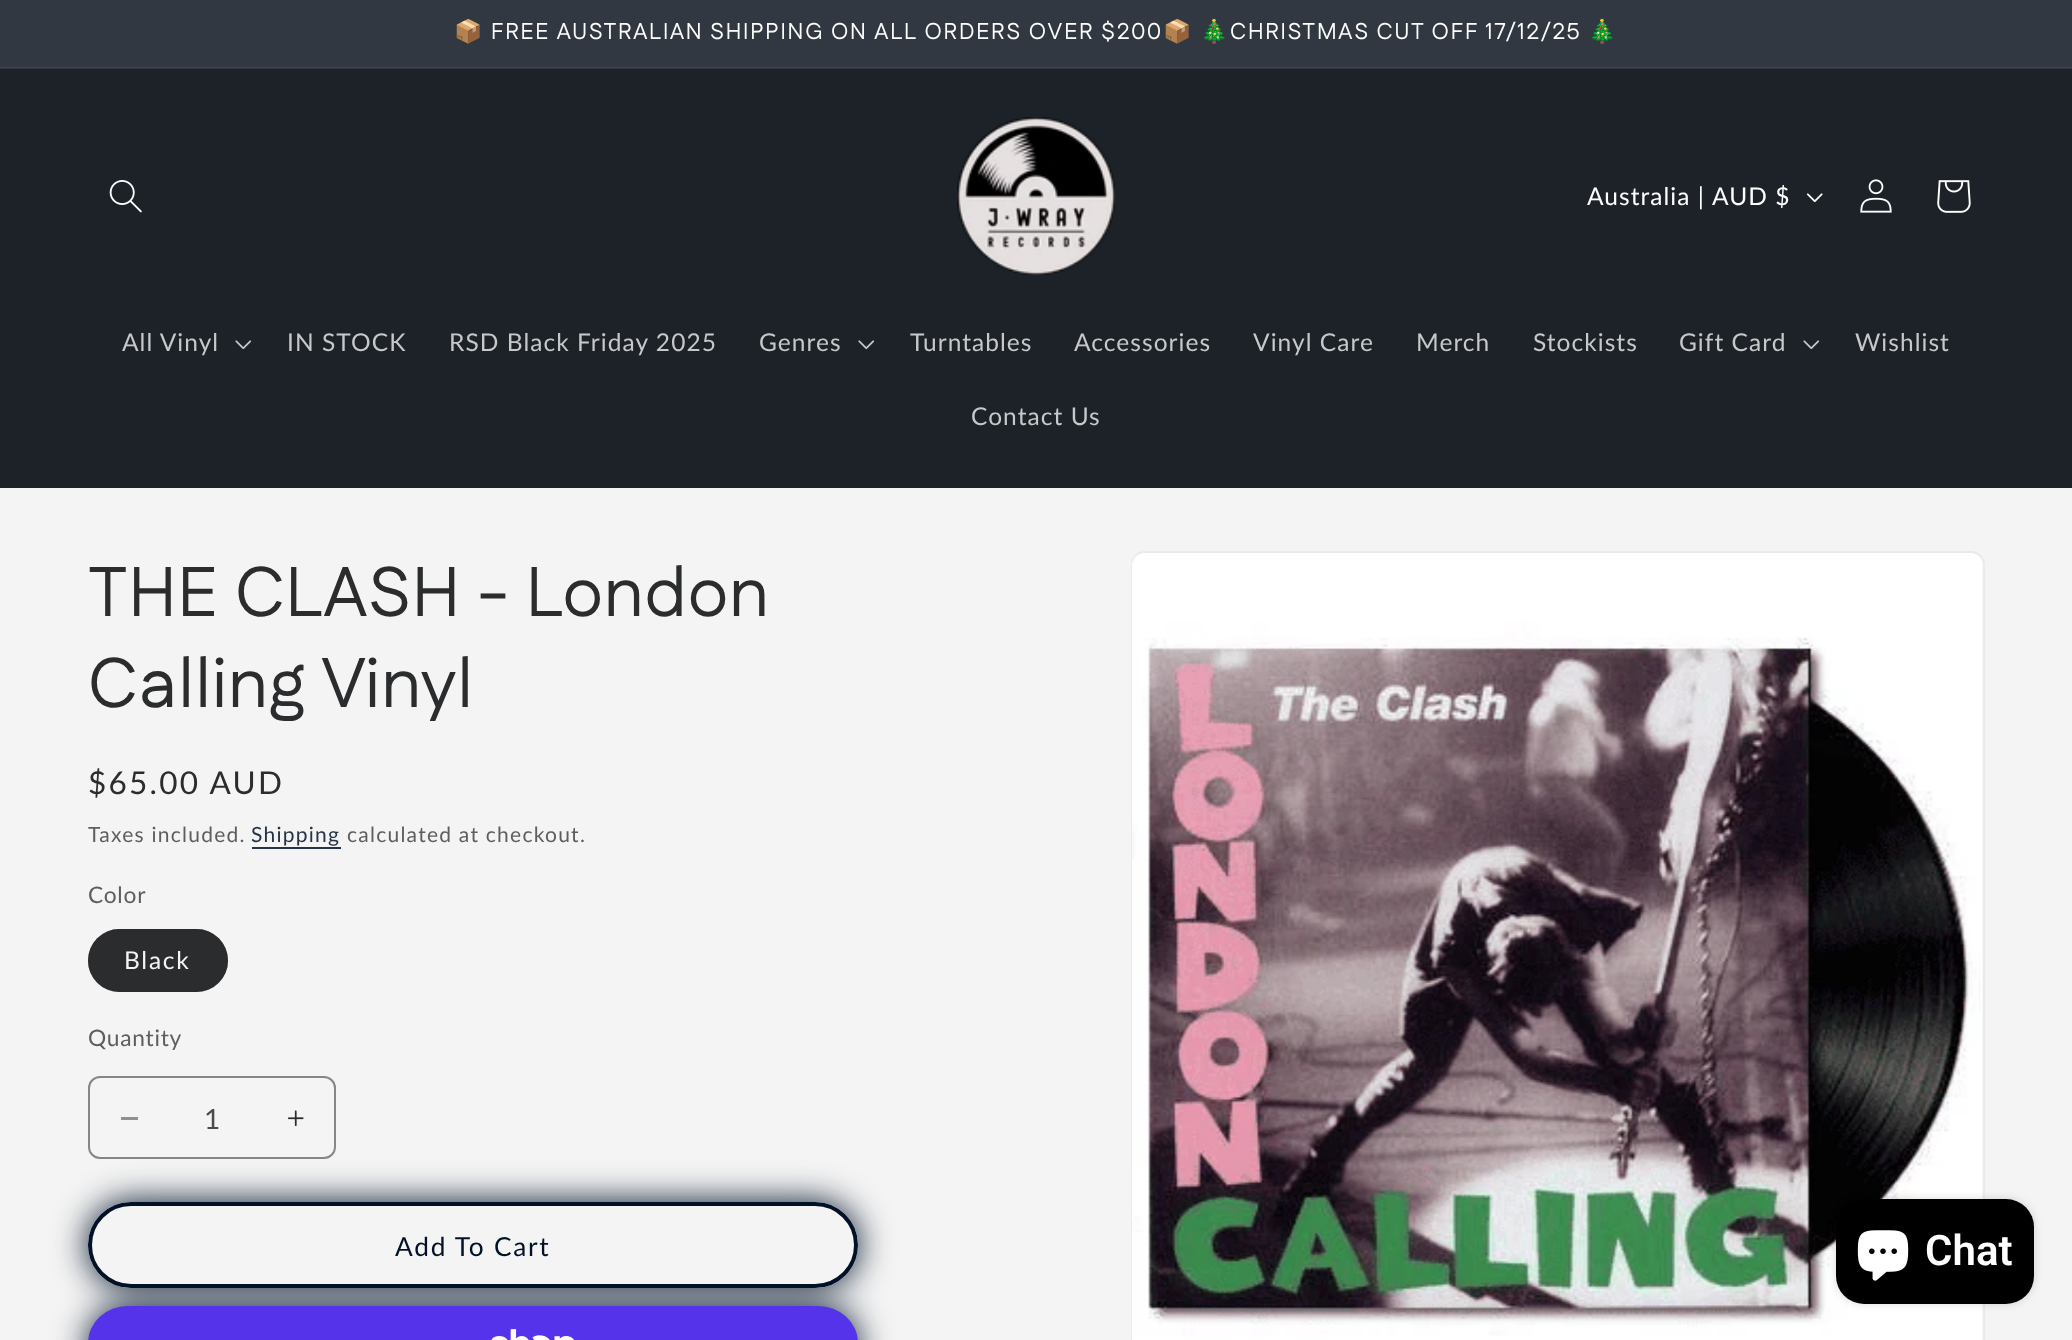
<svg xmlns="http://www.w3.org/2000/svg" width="2072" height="1340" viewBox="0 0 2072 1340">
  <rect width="100%" height="100%" fill="#f4f4f4"/>
  <path d="M0 0h2072v67H0z" fill="#323841"/>
  <path d="M0 67h2072v1H0z" fill="#424850"/>
  <path d="M0 69h2072v419H0z" fill="#1c2228"/>
  <path d="M0 68h2072v1H0z" fill="#2e3439"/>
  <image x="109" y="180" width="33" height="33" href="img/1.png"/>
  <image x="957" y="117" width="158" height="158" href="img/2.png"/>
  <image x="1806" y="193" width="17" height="10" href="img/3.png"/>
  <image x="1860" y="179" width="32" height="34" href="img/4.png"/>
  <image x="1937" y="180" width="34" height="33" href="img/5.png"/>
  <image x="235" y="340" width="17" height="10" href="img/6.png"/>
  <image x="858" y="340" width="17" height="10" href="img/6.png"/>
  <image x="1803" y="340" width="17" height="10" href="img/6.png"/>
  <path d="M252 847h89v2H252z" fill="#253347"/>
  <rect x="88" y="929" width="140" height="63" rx="31.5" fill="#2b2c2d"/>
  <rect x="89" y="930" width="138" height="61" rx="30.5" fill="none" stroke="#2b2c2d8c" stroke-width="2"/>
  <path d="M121 1117h17v3H121z" fill="#909091"/>
  <image x="287" y="1110" width="17" height="17" href="img/7.png"/>
  <rect x="88" y="1202" width="770" height="86" rx="43" fill="#001128" filter="blur(17.5px)"/>
  <rect x="89" y="1077" width="246" height="81" rx="11" fill="none" stroke="#858686" stroke-width="2"/>
  <rect x="88" y="1306" width="770" height="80" rx="40" fill="#001128" filter="blur(17.5px)"/>
  <rect x="88" y="1202" width="770" height="86" rx="43" fill="#f4f4f4"/>
  <rect x="90" y="1204" width="766" height="82" rx="41" fill="none" stroke="#f4f4f4" stroke-width="4"/>
  <rect x="90" y="1204" width="766" height="82" rx="41" fill="none" stroke="#001128" stroke-width="4"/>
  <rect x="88" y="1306" width="770" height="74" rx="40" fill="#5433eb"/>
  <image x="491" y="1329" width="83" height="11" href="img/8.png"/>
  <rect x="1132" y="552" width="852" height="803" rx="13" fill="none" stroke="#eaeaea" stroke-width="2"/>
  <image x="1132" y="553" width="851" height="787" href="img/9.png"/>
  <rect x="1836" y="1199" width="198" height="105" rx="28" fill="#00000026" filter="blur(4.5px)"/>
  <rect x="1836" y="1199" width="198" height="105" rx="28" fill="#000"/>
  <image x="1857" y="1230" width="52" height="51" href="img/10.png"/>
  <text x="454" y="39" font-family="Noto Color Emoji" font-size="22.75" letter-spacing="1.75" fill="#fff">📦</text>
  <text x="491" y="39" font-family="Fustat" font-size="22.75" letter-spacing="1.75" fill="#fff">FREE AUSTRALIAN SHIPPING ON ALL ORDERS OVER $200</text>
  <g font-family="Noto Color Emoji" font-size="22.75" letter-spacing="1.75" fill="#fff">
    <text x="1163" y="39">📦</text>
    <text x="1200" y="39">🎄</text>
  </g>
  <text x="1230" y="39" font-family="Fustat" font-size="22.75" letter-spacing="1.75" fill="#fff">CHRISTMAS CUT OFF 17/12/25</text>
  <text x="1588" y="39" font-family="Noto Color Emoji" font-size="22.75" letter-spacing="1.75" fill="#fff">🎄</text>
  <g font-family="Lato" font-size="24.5" letter-spacing="1.05" fill="#fff">
    <text x="1587" y="205">Australia |</text>
    <text x="1712" y="205">AUD $</text>
  </g>
  <g font-family="Lato" font-size="24.5" letter-spacing="1.05" fill="#c6c8c9">
    <text x="122" y="351">All Vinyl</text>
    <text x="287" y="351">IN STOCK</text>
    <text x="449" y="351">RSD Black Friday 2025</text>
    <text x="759" y="351">Genres</text>
    <text x="910" y="351">Turntables</text>
    <text x="1074" y="351">Accessories</text>
    <text x="1253" y="351">Vinyl Care</text>
    <text x="1416" y="351">Merch</text>
    <text x="1533" y="351">Stockists</text>
    <text x="1679" y="351">Gift Card</text>
    <text x="1855" y="351">Wishlist</text>
    <text x="971" y="425">Contact Us</text>
  </g>
  <g font-family="Fustat" font-size="70" letter-spacing="1.05" fill="#2b2c2d">
    <text x="88" y="616">THE CLASH - London</text>
    <text x="88" y="707">Calling Vinyl</text>
  </g>
  <text x="88" y="794" font-family="Lato" font-size="31.5" letter-spacing="2.25" fill="#2b2c2d">$65.00 AUD</text>
  <text x="88" y="842" font-family="Lato" font-size="21" letter-spacing="1.25" fill="#5d5e5f">Taxes included.</text>
  <text x="251" y="842" font-family="Lato" font-size="21" letter-spacing="1.25" fill="#253347">Shipping</text>
  <text x="347" y="842" font-family="Lato" font-size="21" letter-spacing="1.25" fill="#5d5e5f">calculated at checkout.</text>
  <text x="88" y="903" font-family="Lato" font-size="22.75" letter-spacing="0.75" fill="#5d5e5f">Color</text>
  <text x="124" y="969" font-family="Lato" font-size="24.5" letter-spacing="1.75" fill="#f4f4f4">Black</text>
  <text x="88" y="1046" font-family="Lato" font-size="22.75" letter-spacing="0.75" fill="#5d5e5f">Quantity</text>
  <text x="204" y="1129" font-family="Lato" font-size="28" fill="#494a4b">1</text>
  <text x="395" y="1256" font-family="Lato" font-size="26.25" letter-spacing="1.75" fill="#001128">Add To Cart</text>
  <text x="1925" y="1265" font-family="Roboto" font-size="42" font-weight="600" fill="#fff">Chat</text>
</svg>
